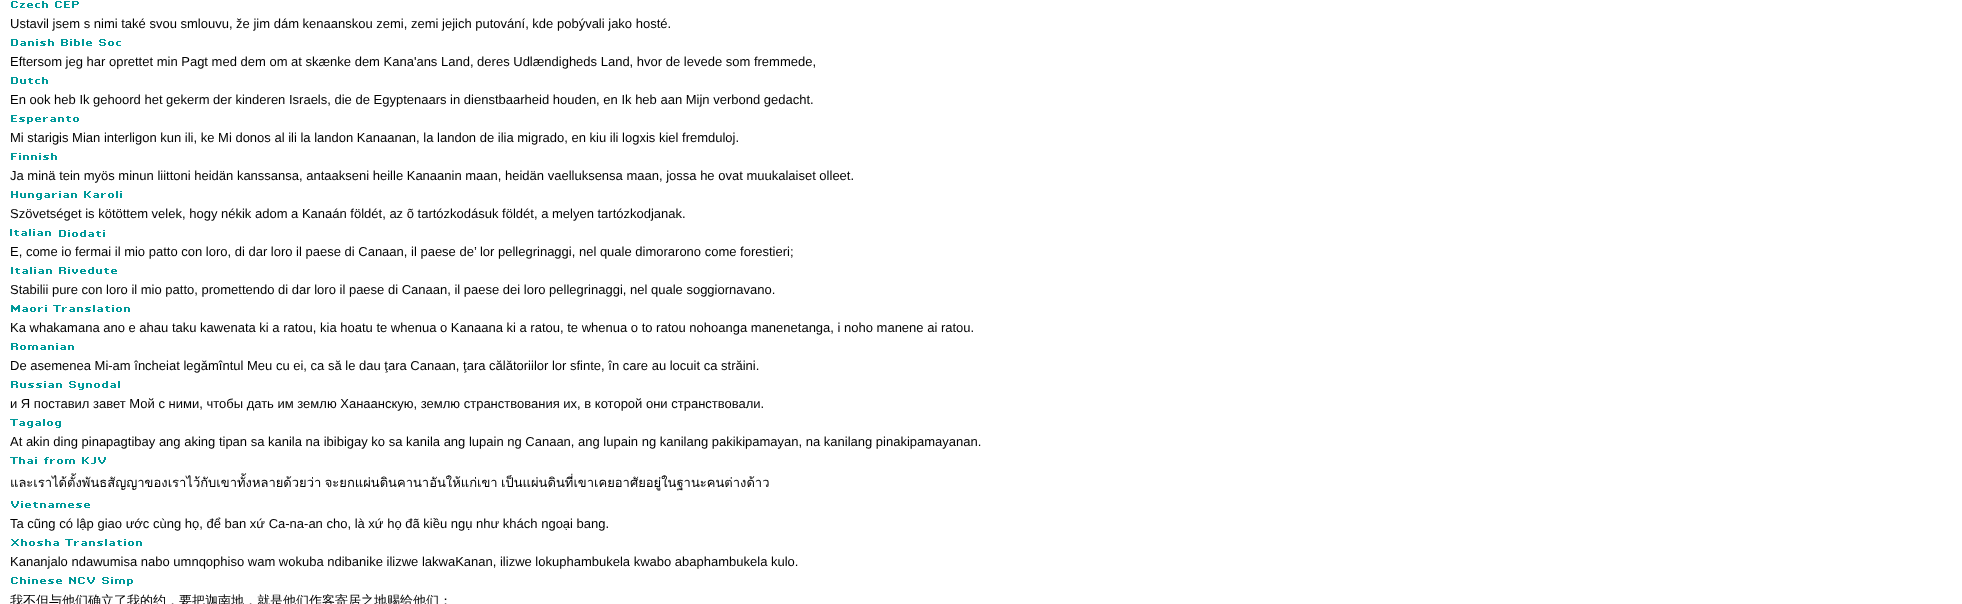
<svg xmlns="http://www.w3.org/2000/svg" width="1962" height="604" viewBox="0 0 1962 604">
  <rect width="100%" height="100%" fill="#fff"/>
  <image x="11" y="1" width="68" height="7" href="img/1.png"/>
  <image x="11" y="39" width="110" height="7" href="img/2.png"/>
  <image x="11" y="77" width="37" height="7" href="img/3.png"/>
  <image x="11" y="115" width="68" height="9" href="img/4.png"/>
  <image x="11" y="153" width="46" height="7" href="img/5.png"/>
  <image x="11" y="191" width="111" height="9" href="img/6.png"/>
  <image x="10" y="229" width="95" height="8" href="img/7.png"/>
  <image x="11" y="267" width="106" height="7" href="img/8.png"/>
  <image x="11" y="305" width="119" height="7" href="img/9.png"/>
  <image x="11" y="343" width="63" height="7" href="img/10.png"/>
  <image x="11" y="381" width="109" height="9" href="img/11.png"/>
  <image x="10" y="419" width="51" height="9" href="img/12.png"/>
  <image x="10" y="457" width="96" height="7" href="img/13.png"/>
  <image x="11" y="501" width="79" height="7" href="img/14.png"/>
  <image x="11" y="539" width="131" height="7" href="img/15.png"/>
  <image x="11" y="577" width="122" height="9" href="img/16.png"/>
  <g font-family="Liberation Sans" font-size="13" fill="#000">
    <text x="10" y="28">Ustavil jsem s nimi také svou smlouvu, že jim dám kenaanskou zemi, zemi jejich putování, kde pobývali jako hosté.</text>
    <text x="10" y="66">Eftersom jeg har oprettet min Pagt med dem om at skænke dem Kana'ans Land, deres Udlændigheds Land, hvor de levede som fremmede,</text>
    <text x="10" y="104">En ook heb Ik gehoord het gekerm der kinderen Israels, die de Egyptenaars in dienstbaarheid houden, en Ik heb aan Mijn verbond gedacht.</text>
    <text x="10" y="142">Mi starigis Mian interligon kun ili, ke Mi donos al ili la landon Kanaanan, la landon de ilia migrado, en kiu ili logxis kiel fremduloj.</text>
    <text x="10" y="180">Ja minä tein myös minun liittoni heidän kanssansa, antaakseni heille Kanaanin maan, heidän vaelluksensa maan, jossa he ovat muukalaiset olleet.</text>
    <text x="10" y="218">Szövetséget is kötöttem velek, hogy nékik adom a Kanaán földét, az õ tartózkodásuk földét, a melyen tartózkodjanak.</text>
    <text x="10" y="256">E, come io fermai il mio patto con loro, di dar loro il paese di Canaan, il paese de’ lor pellegrinaggi, nel quale dimorarono come forestieri;</text>
    <text x="10" y="294">Stabilii pure con loro il mio patto, promettendo di dar loro il paese di Canaan, il paese dei loro pellegrinaggi, nel quale soggiornavano.</text>
    <text x="10" y="332">Ka whakamana ano e ahau taku kawenata ki a ratou, kia hoatu te whenua o Kanaana ki a ratou, te whenua o to ratou nohoanga manenetanga, i noho manene ai ratou.</text>
    <text x="10" y="370">De asemenea Mi-am încheiat legămîntul Meu cu ei, ca să le dau ţara Canaan, ţara călătoriilor lor sfinte, în care au locuit ca străini.</text>
    <text x="10" y="408">и Я поставил завет Мой с ними, чтобы дать им землю Ханаанскую, землю странствования их, в которой они странствовали.</text>
    <text x="10" y="446">At akin ding pinapagtibay ang aking tipan sa kanila na ibibigay ko sa kanila ang lupain ng Canaan, ang lupain ng kanilang pakikipamayan, na kanilang pinakipamayanan.</text>
  </g>
  <text x="10" y="487" word-spacing="-1" font-family="Loma" font-size="13" fill="#000">และเราได้ตั้งพันธสัญญาของเราไว้กับเขาทั้งหลายด้วยว่า จะยกแผ่นดินคานาอันให้แก่เขา เป็นแผ่นดินที่เขาเคยอาศัยอยู่ในฐานะคนต่างด้าว</text>
  <g font-family="Liberation Sans" font-size="13" fill="#000">
    <text x="10" y="528">Ta cũng có lập giao ước cùng họ, để ban xứ Ca-na-an cho, là xứ họ đã kiều ngụ như khách ngoại bang.</text>
    <text x="10" y="566">Kananjalo ndawumisa nabo umnqophiso wam wokuba ndibanike ilizwe lakwaKanan, ilizwe lokuphambukela kwabo abaphambukela kulo.</text>
  </g>
  <text x="10" y="605" font-family="WenQuanYi Zen Hei" font-size="13" font-weight="500" fill="#000">我不但与他们确立了我的约，要把迦南地，就是他们作客寄居之地赐给他们；</text>
</svg>
